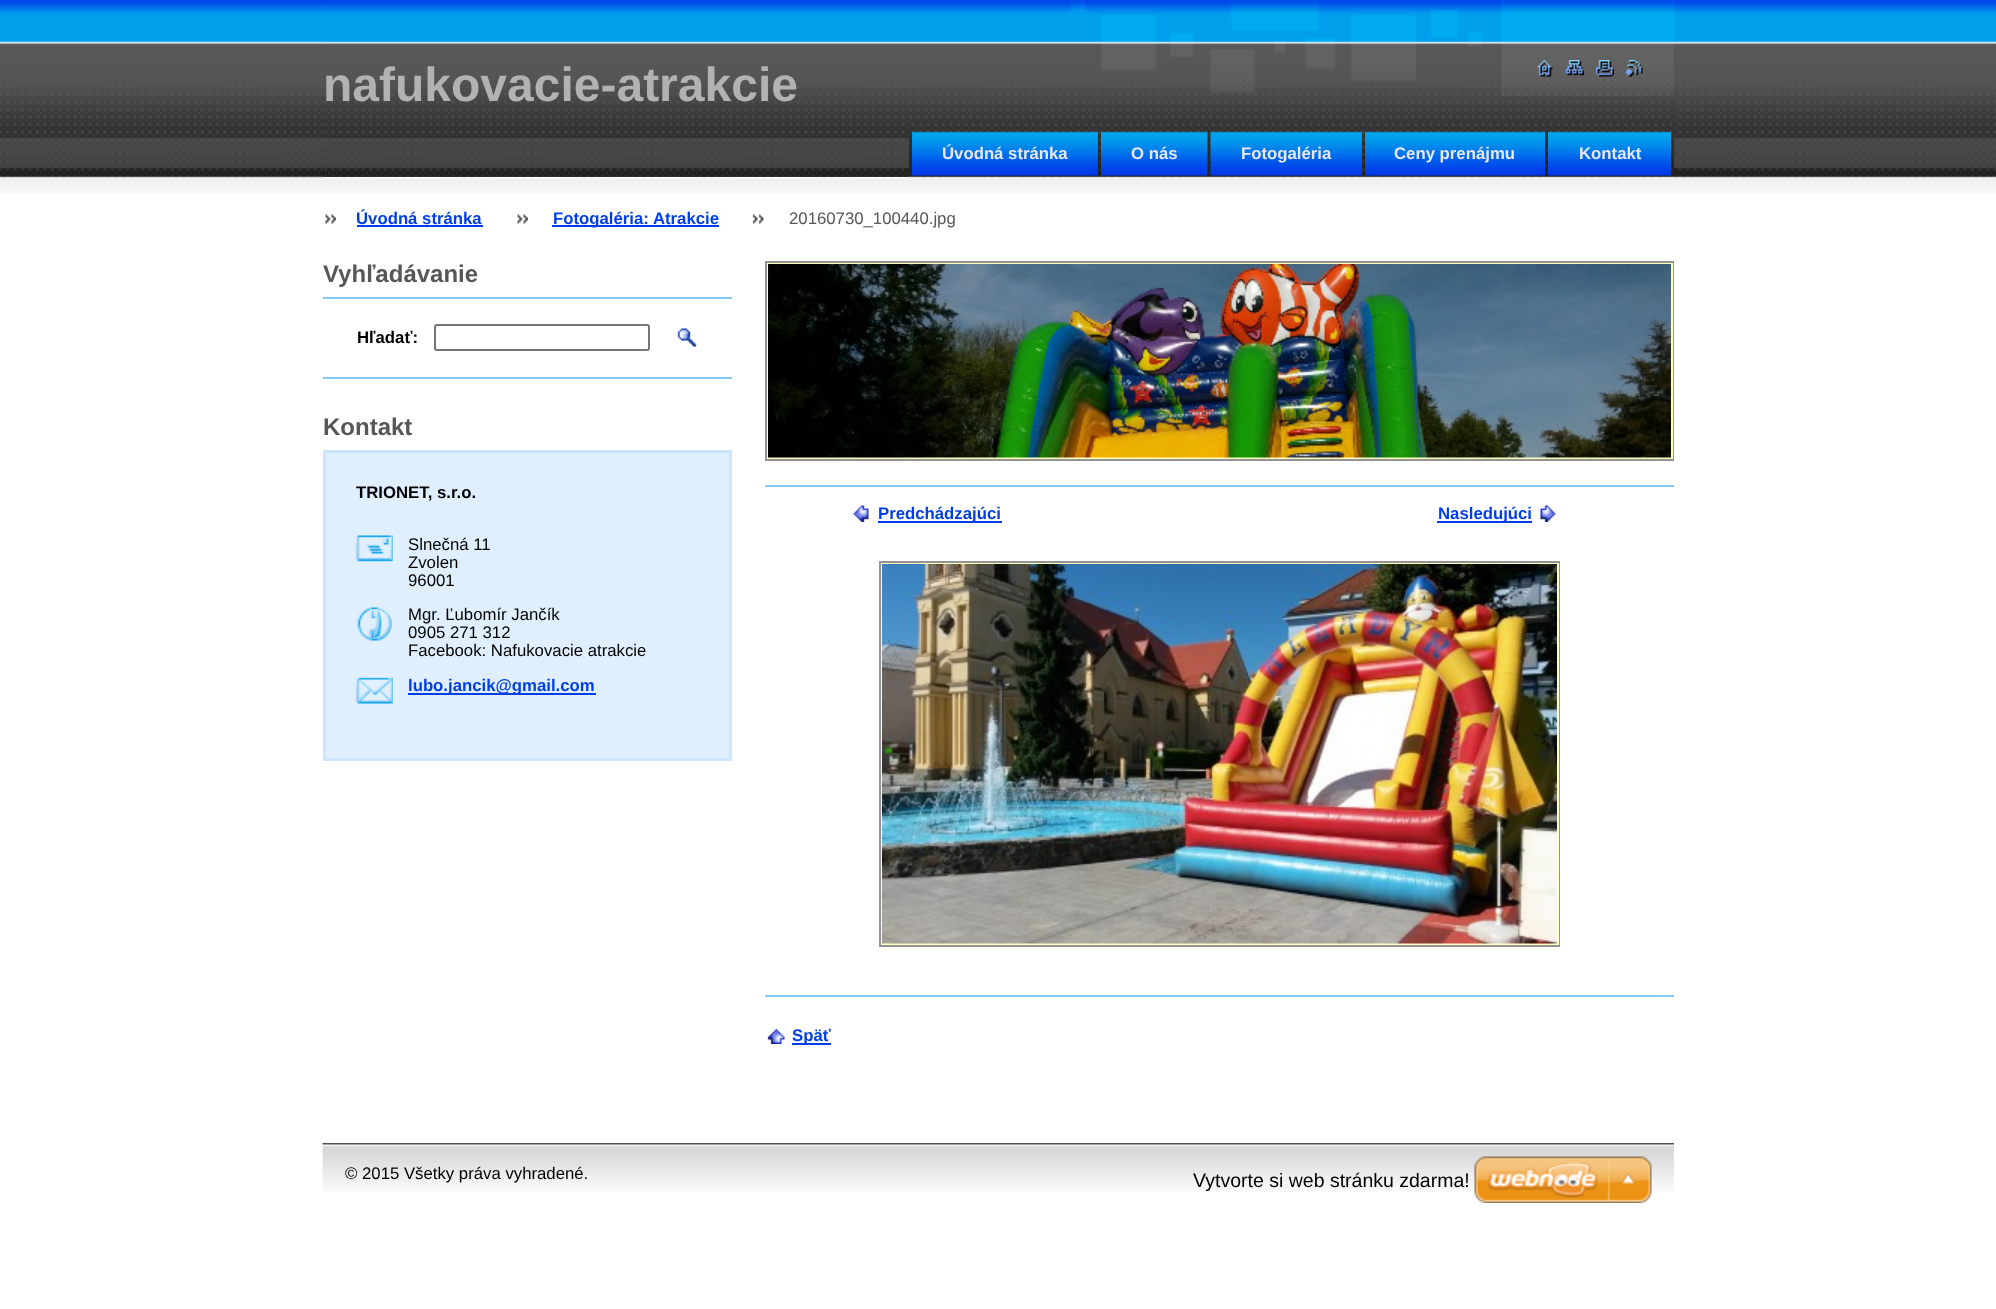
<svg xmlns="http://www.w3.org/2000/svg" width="1996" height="1309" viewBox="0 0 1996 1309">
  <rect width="100%" height="100%" fill="#fff"/>
  <image x="0" y="0" width="1996" height="195" href="img/1.png"/>
  <image x="322" y="0" width="1352" height="177" href="img/2.png"/>
  <image x="1537" y="60" width="16" height="17" href="img/3.png"/>
  <image x="1566" y="60" width="18" height="16" href="img/4.png"/>
  <image x="1596" y="60" width="18" height="17" href="img/5.png"/>
  <image x="1626" y="60" width="17" height="17" href="img/6.png"/>
  <image x="322" y="177" width="1352" height="18" href="img/13.png"/>
  <image x="909" y="123" width="765" height="56" href="img/7.png"/>
  <image x="912" y="131" width="186" height="45" href="img/8.png"/>
  <image x="1101" y="131" width="107" height="45" href="img/9.png"/>
  <image x="1210" y="131" width="152" height="45" href="img/10.png"/>
  <image x="1365" y="131" width="180" height="45" href="img/11.png"/>
  <image x="1548" y="131" width="123" height="45" href="img/12.png"/>
  <image x="325" y="214" width="11" height="10" href="img/14.png"/>
  <path d="M357 225h126v2H357z" fill="#003ee8"/>
  <image x="517" y="214" width="11" height="10" href="img/15.png"/>
  <path d="M552 225h167v2H552z" fill="#003ee8"/>
  <image x="752" y="214" width="12" height="10" href="img/16.png"/>
  <path d="M323 297h409v2H323z" fill="#83caf4"/>
  <path d="M323 377h409v2H323z" fill="#83caf4"/>
  <rect x="435" y="325" width="214" height="25" rx="2" fill="none" stroke="#767676" stroke-width="2"/>
  <image x="677" y="328" width="20" height="19" href="img/17.png"/>
  <path d="M324.5 451.5h406v308H324.5z" fill="#e0effe" stroke="#cce4fd" stroke-width="3"/>
  <image x="355" y="535" width="38" height="27" href="img/18.png"/>
  <image x="356" y="607" width="36" height="34" href="img/19.png"/>
  <image x="355" y="677" width="38" height="27" href="img/20.png"/>
  <path d="M408 693h188v2H408z" fill="#003ee8"/>
  <path d="M766 262h907v198H766z" fill="none" stroke="#939393" stroke-width="2"/>
  <path d="M768 264h904v194H768z" fill="none" stroke="#ffffbe" stroke-width="2"/>
  <image x="768" y="264" width="903" height="194" href="img/21.png"/>
  <path d="M765 485h909v2H765z" fill="#83caf4"/>
  <path d="M765 995h909v2H765z" fill="#83caf4"/>
  <image x="853" y="505" width="16" height="17" href="img/22.png"/>
  <path d="M878 521h124v2H878z" fill="#003ee8"/>
  <path d="M1437 521h95v2H1437z" fill="#003ee8"/>
  <image x="1540" y="505" width="16" height="17" href="img/23.png"/>
  <path d="M880 562h679v384H880z" fill="none" stroke="#949496" stroke-width="2"/>
  <path d="M882 564h676v380H882z" fill="none" stroke="#ffffbe" stroke-width="2"/>
  <image x="882" y="564" width="675" height="380" href="img/24.png"/>
  <image x="767" y="1028" width="18" height="16" href="img/25.png"/>
  <path d="M792 1043h39v2H792z" fill="#003ee8"/>
  <image x="322" y="1143" width="1352" height="49" href="img/26.png"/>
  <image x="1474" y="1156" width="178" height="47" href="img/27.png"/>
  <text x="323" y="101" font-family="Liberation Sans" font-size="48" font-weight="bold" fill="#b2b2b2">nafukovacie-atrakcie</text>
  <g font-family="Liberation Sans" font-size="16.75" font-weight="bold" fill="#e6e8fa">
    <text x="942" y="159">Úvodná stránka</text>
    <text x="1131" y="159">O nás</text>
    <text x="1241" y="159">Fotogaléria</text>
    <text x="1394" y="159">Ceny prenájmu</text>
    <text x="1579" y="159">Kontakt</text>
  </g>
  <g font-family="Liberation Sans" font-size="16.75" font-weight="bold" fill="#003ee8">
    <text x="356" y="224">Úvodná stránka</text>
    <text x="553" y="224">Fotogaléria: Atrakcie</text>
  </g>
  <text x="789" y="224" font-family="Liberation Sans" font-size="16.75" fill="#575757">20160730_100440.jpg</text>
  <text x="323" y="282" font-family="Liberation Sans" font-size="24" font-weight="bold" fill="#575757">Vyhľadávanie</text>
  <text x="357" y="343" font-family="Liberation Sans" font-size="16.75" font-weight="bold" fill="#000">Hľadať:</text>
  <text x="323" y="435" font-family="Liberation Sans" font-size="24" font-weight="bold" fill="#575757">Kontakt</text>
  <text x="356" y="498" font-family="Liberation Sans" font-size="16.75" font-weight="bold" fill="#000">TRIONET, s.r.o.</text>
  <g font-family="Liberation Sans" font-size="16.75" fill="#000">
    <text x="408" y="550">Slnečná 11</text>
    <text x="408" y="568">Zvolen</text>
    <text x="408" y="586">96001</text>
    <text x="408" y="620">Mgr. Ľubomír Jančík</text>
    <text x="408" y="638">0905 271 312</text>
    <text x="408" y="656">Facebook: Nafukovacie atrakcie</text>
  </g>
  <g font-family="Liberation Sans" font-size="16.75" font-weight="bold" fill="#003ee8">
    <text x="408" y="691">lubo.jancik@gmail.com</text>
    <text x="878" y="519">Predchádzajúci</text>
    <text x="1438" y="519">Nasledujúci</text>
    <text x="792" y="1041">Späť</text>
  </g>
  <text x="345" y="1179" font-family="Liberation Sans" font-size="16.75" fill="#000">© 2015 Všetky práva vyhradené.</text>
  <text x="1193" y="1187" font-family="Liberation Sans" font-size="19.5" fill="#000">Vytvorte si web stránku zdarma!</text>
</svg>
